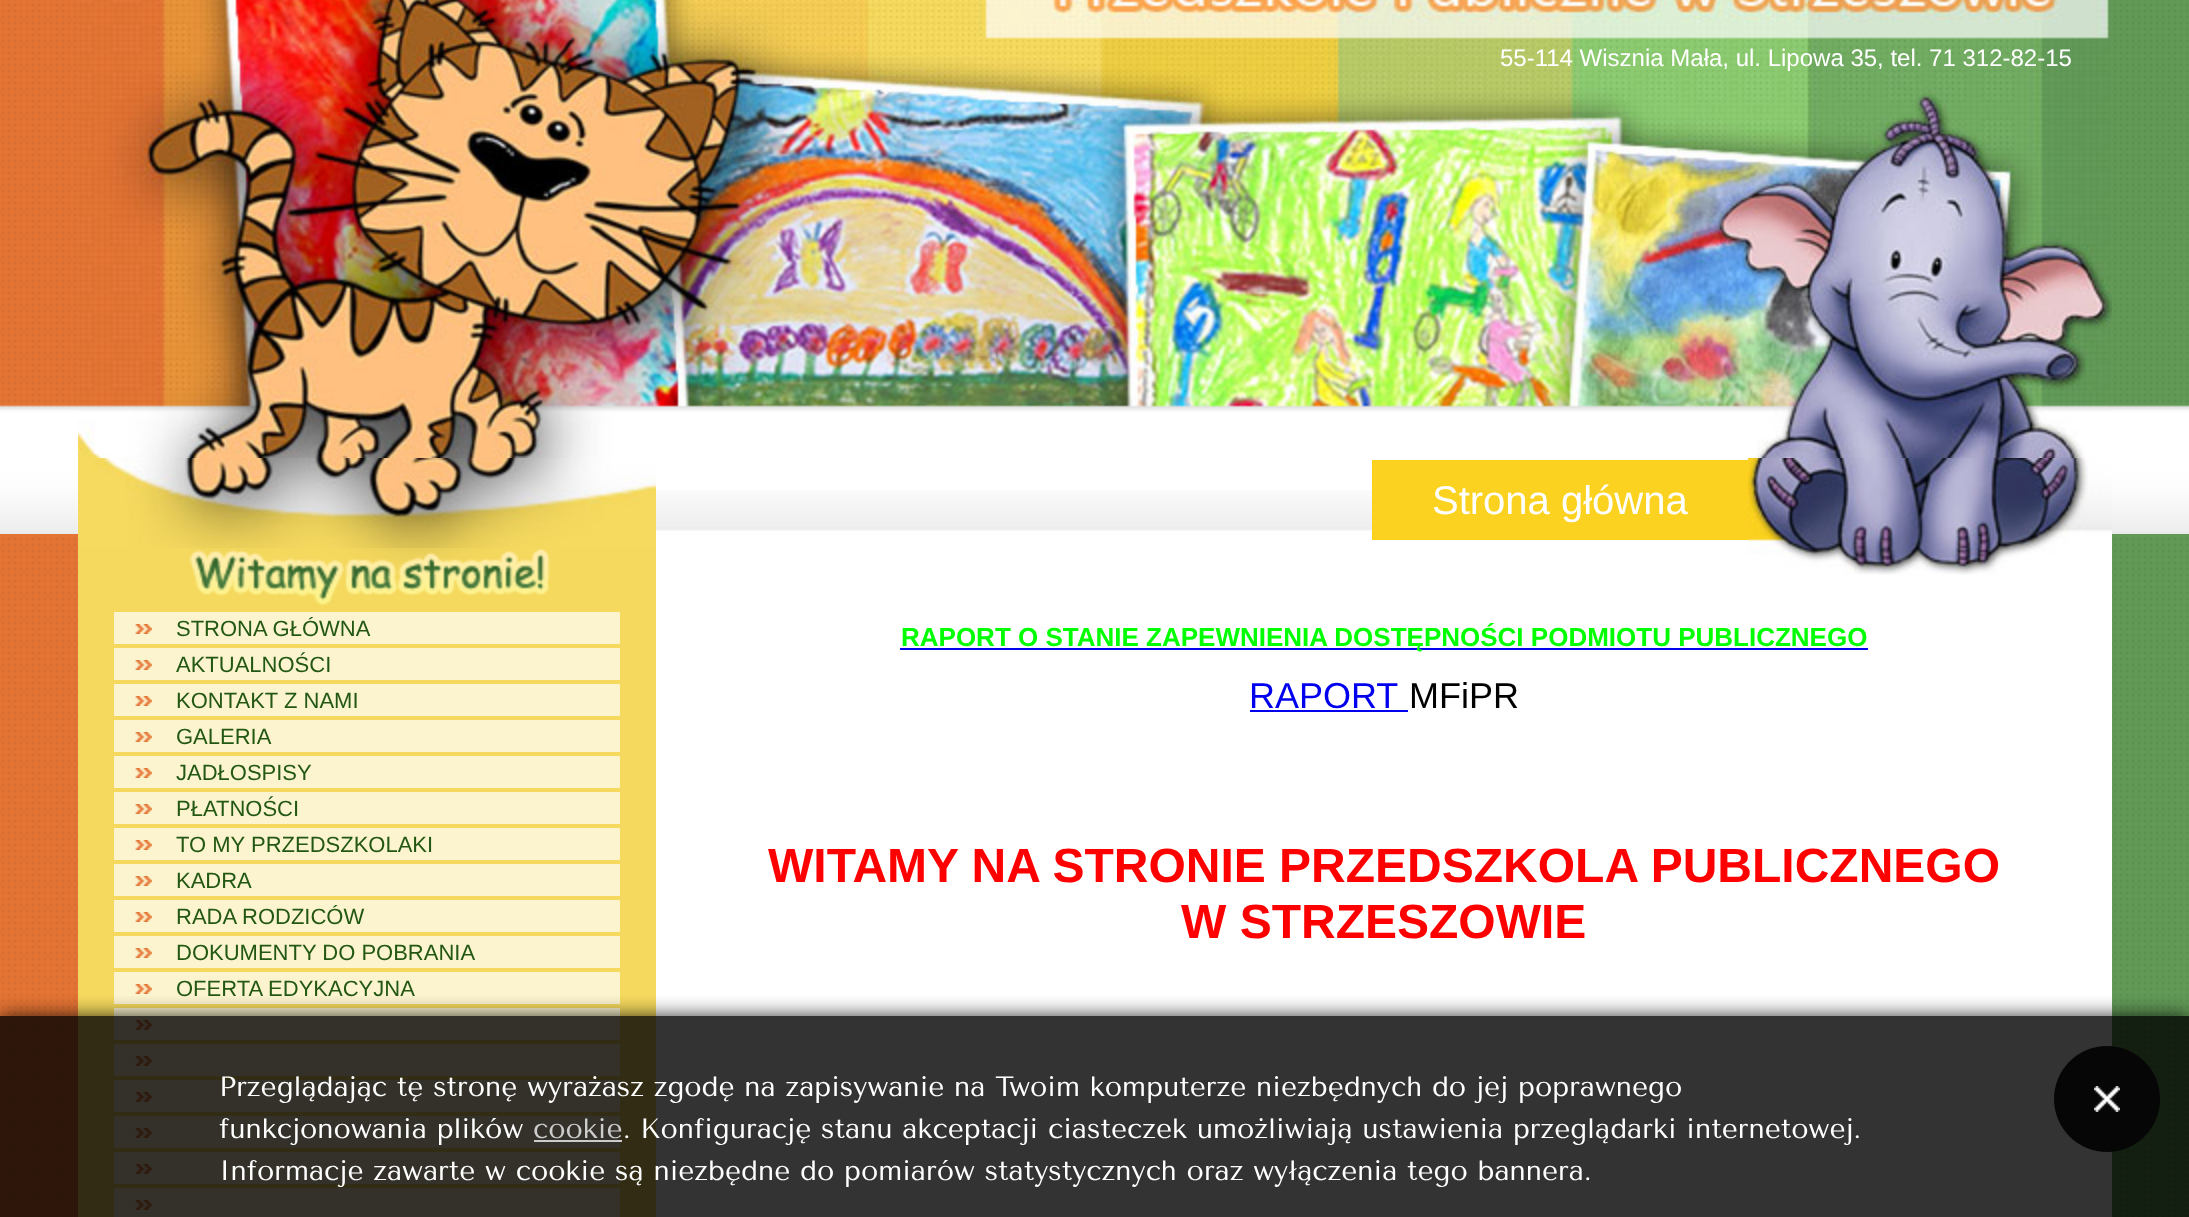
<svg xmlns="http://www.w3.org/2000/svg" width="2189" height="1217" viewBox="0 0 2189 1217">
  <defs>
    <clipPath id="clip1"><path d="M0 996h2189v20H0z"/></clipPath>
  </defs>
  <rect width="100%" height="100%" fill="#fff"/>
  <image x="0" y="0" width="78" height="1217" href="img/1.png"/>
  <image x="0" y="405" width="78" height="129" href="img/2.png"/>
  <image x="78" y="0" width="2034" height="458" href="img/3.png"/>
  <image x="656" y="490" width="716" height="41" href="img/4.png"/>
  <path d="M1372 460h376v80H1372z" fill="#fbd21f"/>
  <image x="1748" y="458" width="364" height="117" href="img/5.png"/>
  <image x="78" y="458" width="578" height="90" href="img/6.png"/>
  <path d="M78 548h578v669H78z" fill="#f5d95e"/>
  <image x="189" y="548" width="362" height="58" href="img/7.png"/>
  <path d="M114 612h506v32H114z" fill="#fcf4cf"/>
  <image x="135" y="624" width="17" height="10" href="img/8.png"/>
  <path d="M114 648h506v32H114z" fill="#fcf4cf"/>
  <image x="135" y="660" width="17" height="10" href="img/8.png"/>
  <path d="M114 684h506v32H114z" fill="#fcf4cf"/>
  <image x="135" y="696" width="17" height="10" href="img/8.png"/>
  <path d="M114 720h506v32H114z" fill="#fcf4cf"/>
  <image x="135" y="732" width="17" height="10" href="img/8.png"/>
  <path d="M114 756h506v32H114z" fill="#fcf4cf"/>
  <image x="135" y="768" width="17" height="10" href="img/8.png"/>
  <path d="M114 792h506v32H114z" fill="#fcf4cf"/>
  <image x="135" y="804" width="17" height="10" href="img/8.png"/>
  <path d="M114 828h506v32H114z" fill="#fcf4cf"/>
  <image x="135" y="840" width="17" height="10" href="img/8.png"/>
  <path d="M114 864h506v32H114z" fill="#fcf4cf"/>
  <image x="135" y="876" width="17" height="10" href="img/8.png"/>
  <path d="M114 900h506v32H114z" fill="#fcf4cf"/>
  <image x="135" y="912" width="17" height="10" href="img/8.png"/>
  <path d="M114 936h506v32H114z" fill="#fcf4cf"/>
  <image x="135" y="948" width="17" height="10" href="img/8.png"/>
  <path d="M114 972h506v32H114z" fill="#fcf4cf"/>
  <image x="135" y="984" width="17" height="10" href="img/8.png"/>
  <path d="M114 1008h506v32H114z" fill="#fcf4cf"/>
  <image x="135" y="1020" width="17" height="10" href="img/8.png"/>
  <path d="M114 1044h506v32H114z" fill="#fcf4cf"/>
  <image x="135" y="1056" width="17" height="10" href="img/8.png"/>
  <path d="M114 1080h506v32H114z" fill="#fcf4cf"/>
  <image x="135" y="1092" width="17" height="10" href="img/8.png"/>
  <path d="M114 1116h506v32H114z" fill="#fcf4cf"/>
  <image x="135" y="1128" width="17" height="10" href="img/8.png"/>
  <path d="M114 1152h506v32H114z" fill="#fcf4cf"/>
  <image x="135" y="1164" width="17" height="10" href="img/8.png"/>
  <path d="M114 1188h506v29H114z" fill="#fcf4cf"/>
  <image x="135" y="1200" width="17" height="10" href="img/8.png"/>
  <path d="M900 648h968v2H900z" fill="#00e"/>
  <path d="M1250 710h158v2H1250z" fill="#00e"/>
  <image x="2112" y="0" width="77" height="1217" href="img/9.png"/>
  <image x="2112" y="405" width="77" height="129" href="img/10.png"/>
  <g clip-path="url(#clip1)">
    <path d="M0 1016h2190v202H0z" fill="#000000cc" filter="blur(10px)"/>
  </g>
  <path d="M0 1016h2189v201H0z" fill="#000000cc"/>
  <path d="M534 1140h88v2H534z" fill="#ccc"/>
  <circle cx="2107" cy="1099" r="53" fill="#060606"/>
  <image x="2094" y="1086" width="26" height="26" href="img/11.png"/>
  <text x="1500" y="66" font-family="Liberation Sans" font-size="24" fill="#fff">55-114 Wisznia Mała, ul. Lipowa 35, tel. 71 312-82-15</text>
  <text x="1432" y="514" font-family="Liberation Sans" font-size="40" fill="#fff">Strona główna</text>
  <g font-family="Liberation Sans" font-size="22" fill="#225813">
    <text x="176" y="636">STRONA GŁÓWNA</text>
    <text x="176" y="672">AKTUALNOŚCI</text>
    <text x="176" y="708">KONTAKT Z NAMI</text>
    <text x="176" y="744">GALERIA</text>
    <text x="176" y="780">JADŁOSPISY</text>
    <text x="176" y="816">PŁATNOŚCI</text>
    <text x="176" y="852">TO MY PRZEDSZKOLAKI</text>
    <text x="176" y="888">KADRA</text>
    <text x="176" y="924">RADA RODZICÓW</text>
    <text x="176" y="960">DOKUMENTY DO POBRANIA</text>
    <text x="176" y="996">OFERTA EDYKACYJNA</text>
  </g>
  <text x="901" y="646" font-family="Liberation Sans" font-size="26" font-weight="bold" fill="#0f0">RAPORT O STANIE ZAPEWNIENIA DOSTĘPNOŚCI PODMIOTU PUBLICZNEGO</text>
  <text x="1249" y="708" font-family="Liberation Sans" font-size="36" fill="#00e">RAPORT</text>
  <text x="1409" y="708" font-family="Liberation Sans" font-size="36" fill="#000">MFiPR</text>
  <g font-family="Liberation Sans" font-size="48" font-weight="bold" fill="#f00">
    <text x="768" y="882">WITAMY NA STRONIE PRZEDSZKOLA PUBLICZNEGO</text>
    <text x="1181" y="938">W STRZESZOWIE</text>
  </g>
  <g font-family="Tenor Sans" font-size="28" fill="#fff">
    <text x="219" y="1096">Przeglądając tę stronę wyrażasz zgodę na zapisywanie na Twoim komputerze niezbędnych do jej poprawnego</text>
    <text x="219" y="1138">funkcjonowania plików</text>
  </g>
  <text x="533" y="1138" font-family="Tenor Sans" font-size="28" fill="#ccc">cookie</text>
  <g font-family="Tenor Sans" font-size="28" fill="#fff">
    <text x="623" y="1138">. Konfigurację stanu akceptacji ciasteczek umożliwiają ustawienia przeglądarki internetowej.</text>
    <text x="219" y="1180">Informacje zawarte w cookie są niezbędne do pomiarów statystycznych oraz wyłączenia tego bannera.</text>
  </g>
</svg>
